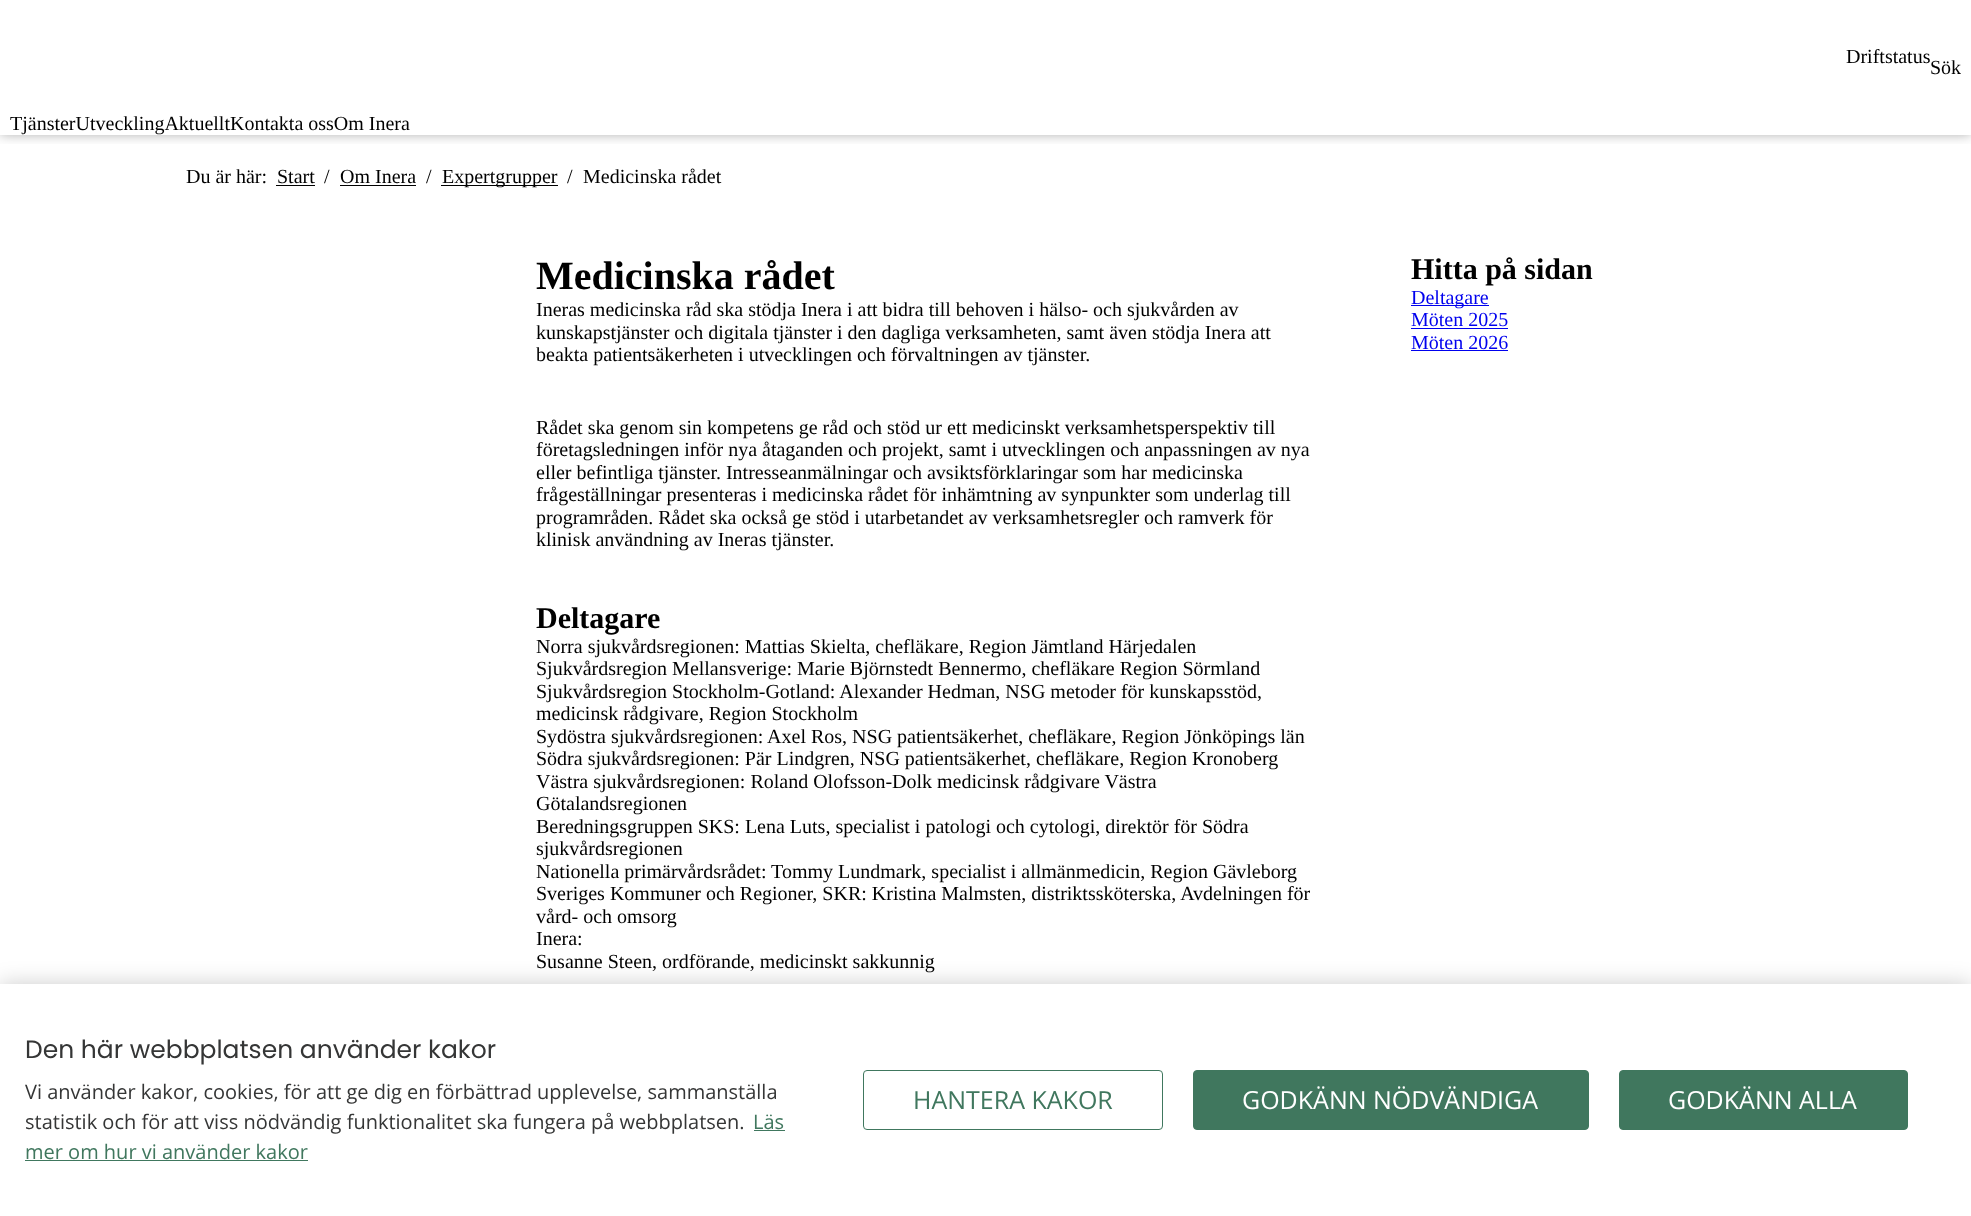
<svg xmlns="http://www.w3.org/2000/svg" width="1971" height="1216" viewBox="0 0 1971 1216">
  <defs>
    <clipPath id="clip1"><path d="M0 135h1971v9H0z"/></clipPath>
  </defs>
  <rect width="100%" height="100%" fill="#fff"/>
  <g clip-path="url(#clip1)">
    <path d="M0 0h1971v135H0z" fill="#0000004d" filter="blur(6px)"/>
  </g>
  <path d="M276 185h39v1H276z" fill="#000"/>
  <path d="M340 185h76v1H340z" fill="#000"/>
  <path d="M441 185h117v1H441z" fill="#000"/>
  <path d="M1411 305h78v1H1411z" fill="#00e"/>
  <path d="M1411 328h97v1H1411z" fill="#00e"/>
  <path d="M1411 350h97v1H1411z" fill="#00e"/>
  <path d="M0 984h1971v232H0z" fill="#00000033" filter="blur(11px)"/>
  <path d="M0 984h1971v232H0z" fill="#fff"/>
  <path d="M754 1130h31v1H754z" fill="#40775e"/>
  <path d="M25 1160h283v1H25z" fill="#40775e"/>
  <rect x="863.5" y="1070.5" width="299" height="59" rx="3.5" fill="none" stroke="#40775e"/>
  <rect x="1193.5" y="1070.5" width="395" height="59" rx="3.5" fill="#40775e" stroke="#40775e"/>
  <rect x="1619.5" y="1070.5" width="288" height="59" rx="3.5" fill="#40775e" stroke="#40775e"/>
  <g font-family="Liberation Serif" font-size="20" fill="#000">
    <text x="1846" y="63">Driftstatus</text>
    <text x="1930" y="74">Sök</text>
    <text x="10" y="130">TjänsterUtvecklingAktuelltKontakta ossOm Inera</text>
    <text x="186" y="183">Du är här:</text>
    <text x="277" y="183">Start</text>
    <text x="324" y="183">/</text>
    <text x="340" y="183">Om Inera</text>
    <text x="426" y="183">/</text>
    <text x="442" y="183">Expertgrupper</text>
    <text x="567" y="183">/</text>
    <text x="583" y="183">Medicinska rådet</text>
  </g>
  <text x="536" y="289" font-family="Liberation Serif" font-size="40" font-weight="bold" fill="#000">Medicinska rådet</text>
  <g font-family="Liberation Serif" font-size="20" fill="#000">
    <text x="536" y="316">Ineras medicinska råd ska stödja Inera i att bidra till behoven i hälso- och sjukvården av</text>
    <text x="536" y="339">kunskapstjänster och digitala tjänster i den dagliga verksamheten, samt även stödja Inera att</text>
    <text x="536" y="361">beakta patientsäkerheten i utvecklingen och förvaltningen av tjänster.</text>
    <text x="536" y="434">Rådet ska genom sin kompetens ge råd och stöd ur ett medicinskt verksamhetsperspektiv till</text>
    <text x="536" y="456">företagsledningen inför nya åtaganden och projekt, samt i utvecklingen och anpassningen av nya</text>
    <text x="536" y="479">eller befintliga tjänster. Intresseanmälningar och avsiktsförklaringar som har medicinska</text>
    <text x="536" y="501">frågeställningar presenteras i medicinska rådet för inhämtning av synpunkter som underlag till</text>
    <text x="536" y="524">programråden. Rådet ska också ge stöd i utarbetandet av verksamhetsregler och ramverk för</text>
    <text x="536" y="546">klinisk användning av Ineras tjänster.</text>
  </g>
  <text x="536" y="628" font-family="Liberation Serif" font-size="30" font-weight="bold" fill="#000">Deltagare</text>
  <g font-family="Liberation Serif" font-size="20" fill="#000">
    <text x="536" y="653">Norra sjukvårdsregionen: Mattias Skielta, chefläkare, Region Jämtland Härjedalen</text>
    <text x="536" y="675">Sjukvårdsregion Mellansverige: Marie Björnstedt Bennermo, chefläkare Region Sörmland</text>
    <text x="536" y="698">Sjukvårdsregion Stockholm-Gotland: Alexander Hedman, NSG metoder för kunskapsstöd,</text>
    <text x="536" y="720">medicinsk rådgivare, Region Stockholm</text>
    <text x="536" y="743">Sydöstra sjukvårdsregionen: Axel Ros, NSG patientsäkerhet, chefläkare, Region Jönköpings län</text>
    <text x="536" y="765">Södra sjukvårdsregionen: Pär Lindgren, NSG patientsäkerhet, chefläkare, Region Kronoberg</text>
    <text x="536" y="788">Västra sjukvårdsregionen: Roland Olofsson-Dolk medicinsk rådgivare Västra</text>
    <text x="536" y="810">Götalandsregionen</text>
    <text x="536" y="833">Beredningsgruppen SKS: Lena Luts, specialist i patologi och cytologi, direktör för Södra</text>
    <text x="536" y="855">sjukvårdsregionen</text>
    <text x="536" y="878">Nationella primärvårdsrådet: Tommy Lundmark, specialist i allmänmedicin, Region Gävleborg</text>
    <text x="536" y="900">Sveriges Kommuner och Regioner, SKR: Kristina Malmsten, distriktssköterska, Avdelningen för</text>
    <text x="536" y="923">vård- och omsorg</text>
    <text x="536" y="945">Inera:</text>
    <text x="536" y="968">Susanne Steen, ordförande, medicinskt sakkunnig</text>
  </g>
  <text x="1411" y="279" font-family="Liberation Serif" font-size="30" font-weight="bold" fill="#000">Hitta på sidan</text>
  <g font-family="Liberation Serif" font-size="20" fill="#00e">
    <text x="1411" y="304">Deltagare</text>
    <text x="1411" y="326">Möten 2025</text>
    <text x="1411" y="349">Möten 2026</text>
  </g>
  <text x="25" y="1058" font-family="Poppins" font-size="25" fill="#353636">Den här webbplatsen använder kakor</text>
  <g font-family="Open Sans" font-size="20" fill="#353636">
    <text x="25" y="1099">Vi använder kakor, cookies, för att ge dig en förbättrad upplevelse, sammanställa</text>
    <text x="25" y="1129">statistik och för att viss nödvändig funktionalitet ska fungera på webbplatsen.</text>
  </g>
  <g font-family="Open Sans" font-size="20" fill="#40775e">
    <text x="753" y="1129">Läs</text>
    <text x="25" y="1159">mer om hur vi använder kakor</text>
  </g>
  <text x="913" y="1109" font-family="Open Sans" font-size="25" fill="#40775e">HANTERA KAKOR</text>
  <g font-family="Open Sans" font-size="25" fill="#fff">
    <text x="1242" y="1109">GODKÄNN NÖDVÄNDIGA</text>
    <text x="1668" y="1109">GODKÄNN ALLA</text>
  </g>
</svg>
